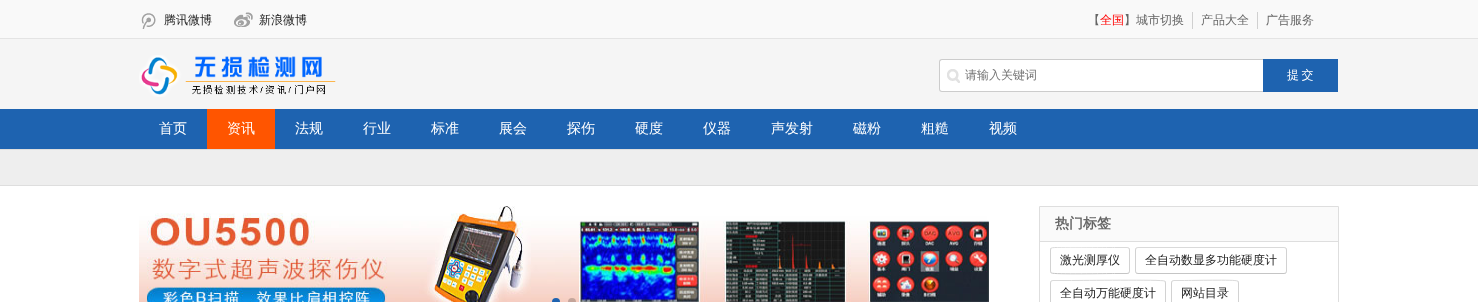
<svg xmlns="http://www.w3.org/2000/svg" width="1478" height="302" viewBox="0 0 1478 302">
  <defs>
    <clipPath id="clip1"><path d="M1050 247h278v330H1050z"/></clipPath>
  </defs>
  <rect width="100%" height="100%" fill="#fff"/>
  <path d="M0 0h1478v38H0z" fill="#f9f9f9"/>
  <path d="M0 38h1478v1H0z" fill="#e4e4e4"/>
  <image x="141" y="13" width="15" height="16" href="img/1.png"/>
  <image x="234" y="12" width="19" height="15" href="img/2.png"/>
  <path d="M1192 12h1v17H1192z" fill="#d0d0d0"/>
  <path d="M1257 12h1v17H1257z" fill="#d0d0d0"/>
  <path d="M0 39h1478v70H0z" fill="#f5f5f5"/>
  <image x="139" y="55" width="197" height="42" href="img/3.png"/>
  <path d="M942 59H1263V92H942C940.5 92 939 90.5 939 89V62C939 60.5 940.5 59 942 59Z" fill="#fff"/>
  <image x="947" y="69" width="13" height="14" href="img/4.png"/>
  <path d="M942 59H1263V92H942C940 92 939 91 939 89V62C939 60 940 59 942 59ZM942 60H1263V91H942C941 91 940 90 940 89V62C940 61 941 60 942 60Z" fill="#ccc" fill-rule="evenodd"/>
  <path d="M1263 59h75v33H1263z" fill="#1e63b0"/>
  <path d="M0 109h1478v40H0z" fill="#1e63b0"/>
  <path d="M207 109h68v40H207z" fill="#f50"/>
  <path d="M0 150h1478v35H0z" fill="#eee"/>
  <path d="M0 149h1478v1H0z" fill="#dedede"/>
  <path d="M0 185h1478v1H0z" fill="#dedede"/>
  <image x="139" y="206" width="850" height="96" href="img/5.png"/>
  <circle cx="556" cy="302" r="4" fill="#1e63b0"/>
  <circle cx="572" cy="302" r="4" fill="#00000033"/>
  <path d="M1039.5 206.5h299v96H1039.5z" fill="none" stroke="#dedede"/>
  <path d="M1040 207h298v34H1040z" fill="#fafafa"/>
  <path d="M1040 241h298v1H1040z" fill="#dedede"/>
  <g clip-path="url(#clip1)">
    <path d="M1051 248H1051.5C1053.5 246.5 1108 247.5 1114.5 247.5H1127L1129 248" fill="none" stroke="#dadada"/>
  </g>
  <path d="M1129 248C1129 248.5 1129.5 249.5 1129.5 250V271C1129.5 271.5 1129 272.5 1129 273" fill="none" stroke="#d2d2d2"/>
  <path d="M1129 273L1127 273.5H1114.5C1108 273.5 1053.5 274.5 1051.5 273H1051" fill="none" stroke="#c5c5c5"/>
  <path d="M1051 273C1051 272.5 1050.5 271.5 1050.5 271V250C1050.5 249.5 1051 248.5 1051 248" fill="none" stroke="#d2d2d2"/>
  <path d="M1136 248L1138 247.5H1284L1286 248" fill="none" stroke="#dadada"/>
  <path d="M1286 248C1286 248.5 1286.5 249.5 1286.5 250V271C1286.5 271.5 1286 272.5 1286 273" fill="none" stroke="#d2d2d2"/>
  <path d="M1286 273L1284 273.5H1138L1136 273" fill="none" stroke="#c5c5c5"/>
  <path d="M1136 273C1136 272.5 1135.5 271.5 1135.5 271V250C1135.5 249.5 1136 248.5 1136 248" fill="none" stroke="#d2d2d2"/>
  <path d="M1051 281L1053 280.5H1071.5C1080.5 280.5 1162.5 279.5 1164.5 281H1165" fill="none" stroke="#dadada"/>
  <path d="M1165 281C1165 281.5 1165.5 282.5 1165.5 283V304C1165.5 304.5 1165 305.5 1165 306" fill="none" stroke="#d2d2d2"/>
  <path d="M1051 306C1051 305.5 1050.5 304.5 1050.5 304V283C1050.5 282.5 1051 281.5 1051 281" fill="none" stroke="#d2d2d2"/>
  <path d="M1172 281L1174 280.5H1184.5C1190.5 280.5 1235.5 279.5 1237.5 281H1238" fill="none" stroke="#dadada"/>
  <path d="M1238 281C1238 281.5 1238.5 282.5 1238.5 283V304C1238.5 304.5 1238 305.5 1238 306" fill="none" stroke="#d2d2d2"/>
  <path d="M1172 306C1172 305.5 1171.5 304.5 1171.5 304V283C1171.5 282.5 1172 281.5 1172 281" fill="none" stroke="#d2d2d2"/>
  <g font-family="WenQuanYi Zen Hei" font-size="12" font-weight="500" fill="#222">
    <text x="164" y="24">腾讯微博</text>
    <text x="259" y="24">新浪微博</text>
  </g>
  <text x="1088" y="24" font-family="WenQuanYi Zen Hei" font-size="12" font-weight="500" fill="#656565">【</text>
  <text x="1100" y="24" font-family="WenQuanYi Zen Hei" font-size="12" font-weight="500" fill="#f00">全国</text>
  <g font-family="WenQuanYi Zen Hei" font-size="12" font-weight="500" fill="#656565">
    <text x="1124" y="24">】城市切换</text>
    <text x="1201" y="24">产品大全</text>
    <text x="1266" y="24">广告服务</text>
  </g>
  <text x="965" y="79" font-family="WenQuanYi Zen Hei" font-size="12" font-weight="500" fill="#757575">请输入关键词</text>
  <text x="1287" y="79" word-spacing="-1" font-family="WenQuanYi Zen Hei" font-size="12" font-weight="500" fill="#fff">提 交</text>
  <g font-family="WenQuanYi Zen Hei" font-size="14" font-weight="500" fill="#fff">
    <text x="159" y="133">首页</text>
    <text x="227" y="133">资讯</text>
    <text x="295" y="133">法规</text>
    <text x="363" y="133">行业</text>
    <text x="431" y="133">标准</text>
    <text x="499" y="133">展会</text>
    <text x="567" y="133">探伤</text>
    <text x="635" y="133">硬度</text>
    <text x="703" y="133">仪器</text>
    <text x="771" y="133">声发射</text>
    <text x="853" y="133">磁粉</text>
    <text x="921" y="133">粗糙</text>
    <text x="989" y="133">视频</text>
  </g>
  <text x="1055" y="228" font-family="WenQuanYi Zen Hei" font-size="14" font-weight="bold" fill="#656565">热门标签</text>
  <g font-family="WenQuanYi Zen Hei" font-size="12" font-weight="500" fill="#222">
    <text x="1060" y="264">激光测厚仪</text>
    <text x="1145" y="264">全自动数显多功能硬度计</text>
    <text x="1060" y="297">全自动万能硬度计</text>
    <text x="1181" y="297">网站目录</text>
  </g>
</svg>
